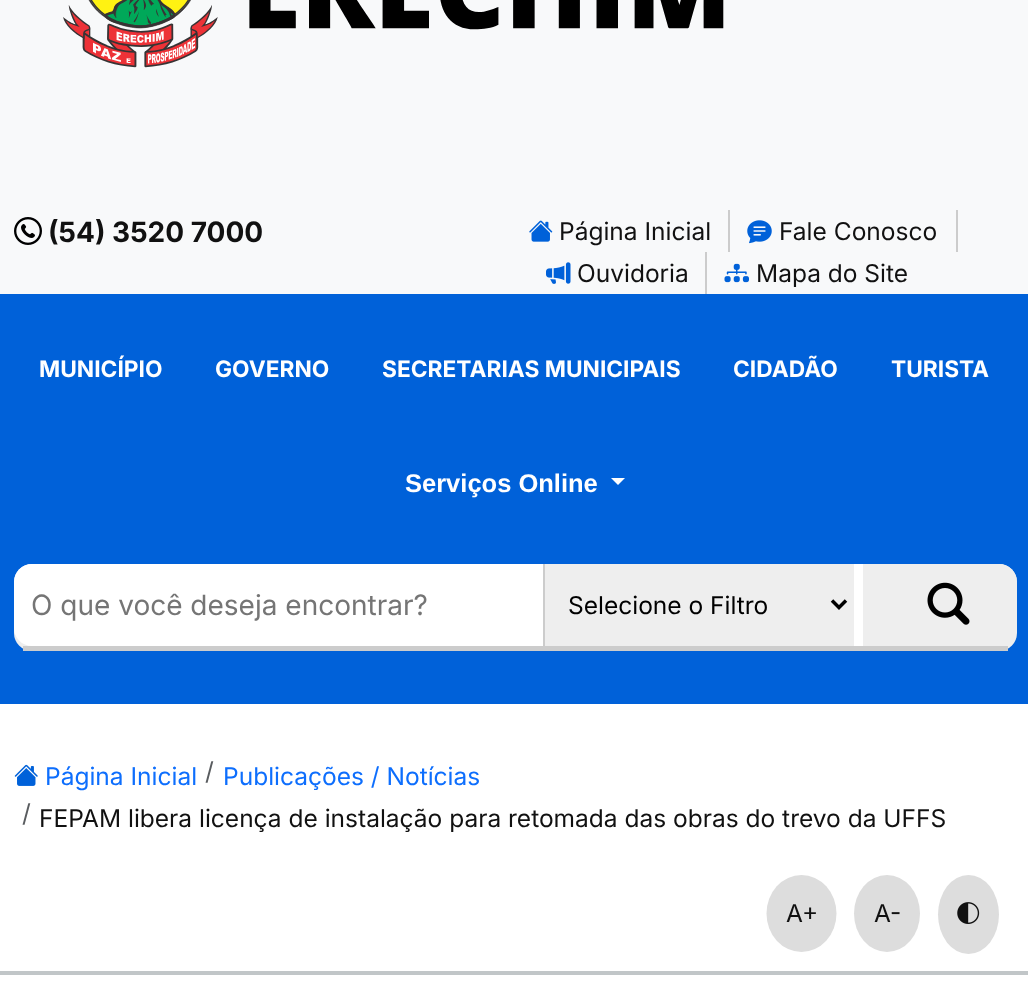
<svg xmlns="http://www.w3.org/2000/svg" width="1028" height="1007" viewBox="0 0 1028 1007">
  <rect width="100%" height="100%" fill="#fff"/>
  <path d="M0 0h1028v294H0z" fill="#f8f9fa"/>
  <image x="63" y="0" width="661" height="68" href="img/1.png"/>
  <image x="14" y="217" width="28" height="28" href="img/2.png"/>
  <path d="M728 210h2v42H728z" fill="#ccc"/>
  <image x="529" y="220" width="24" height="22" href="img/3.png"/>
  <path d="M956 210h2v42H956z" fill="#ccc"/>
  <image x="747" y="220" width="25" height="24" href="img/4.png"/>
  <path d="M705 252h2v42H705z" fill="#ccc"/>
  <image x="546" y="262" width="25" height="22" href="img/5.png"/>
  <image x="724" y="263" width="25" height="20" href="img/6.png"/>
  <path d="M0 294h1028v410H0z" fill="#0061d9"/>
  <path d="M611 478H625L618 485Z" fill="#fff"/>
  <rect x="14" y="564" width="1003" height="87" rx="18" fill="#eee"/>
  <path d="M23 646h985v5H23z" fill="#ccc"/>
  <path d="M32 564H543V646H32C22 646 14 638 14 628V582C14 572 22 564 32 564Z" fill="#fff"/>
  <path d="M854 564h9v82H854z" fill="#fff"/>
  <path d="M543 564h2v82H543z" fill="#ccc"/>
  <path d="M832 600.5L839 607.5L846 600.5" fill="none" stroke="#000" stroke-width="3.5"/>
  <path d="M880 564H999C1009 564 1017 572 1017 582V628C1017 638 1009 646 999 646H880Z" fill="#eee"/>
  <image x="927" y="582" width="43" height="43" href="img/7.png"/>
  <path d="M0 971h1028v4H0z" fill="#c1c6c8"/>
  <image x="14" y="764" width="24" height="22" href="img/8.png"/>
  <ellipse cx="801.5" cy="913.5" rx="35" ry="38.5" fill="#ddd"/>
  <ellipse cx="887" cy="913.5" rx="33" ry="38.5" fill="#ddd"/>
  <ellipse cx="968.5" cy="914.5" rx="30.5" ry="39.5" fill="#ddd"/>
  <image x="957" y="902" width="23" height="22" href="img/9.png"/>
  <text x="48" y="242" font-family="Inter" font-size="28" font-weight="bold" fill="#111">(54) 3520 7000</text>
  <g font-family="Inter" font-size="24.5" fill="#111">
    <text x="559" y="240">Página Inicial</text>
    <text x="779" y="240">Fale Conosco</text>
    <text x="577" y="282">Ouvidoria</text>
    <text x="756" y="282">Mapa do Site</text>
  </g>
  <g font-family="Inter" font-size="22.75" font-weight="bold" fill="#fff">
    <text x="39" y="377">MUNICÍPIO</text>
    <text x="215" y="377">GOVERNO</text>
    <text x="382" y="377">SECRETARIAS MUNICIPAIS</text>
    <text x="733" y="377">CIDADÃO</text>
    <text x="891" y="377">TURISTA</text>
  </g>
  <text x="405" y="492" font-family="Liberation Sans" font-size="25.5" font-weight="bold" fill="#fff">Serviços Online</text>
  <text x="31" y="615" font-family="Inter" font-size="28" fill="#757575">O que você deseja encontrar?</text>
  <text x="568" y="614" font-family="Inter" font-size="24.5" fill="#000">Selecione o Filtro</text>
  <text x="45" y="785" font-family="Inter" font-size="24.5" fill="#0d6efd">Página Inicial</text>
  <text x="205" y="780" font-family="Inter" font-size="24.5" fill="#595c5f">/</text>
  <text x="223" y="785" font-family="Inter" font-size="24.5" fill="#0d6efd">Publicações / Notícias</text>
  <text x="22" y="822" font-family="Inter" font-size="24.5" fill="#595c5f">/</text>
  <g font-family="Inter" font-size="24.5" fill="#111">
    <text x="39" y="827">FEPAM libera licença de instalação para retomada das obras do trevo da UFFS</text>
    <text x="786" y="922">A+</text>
    <text x="874" y="922">A-</text>
  </g>
</svg>
